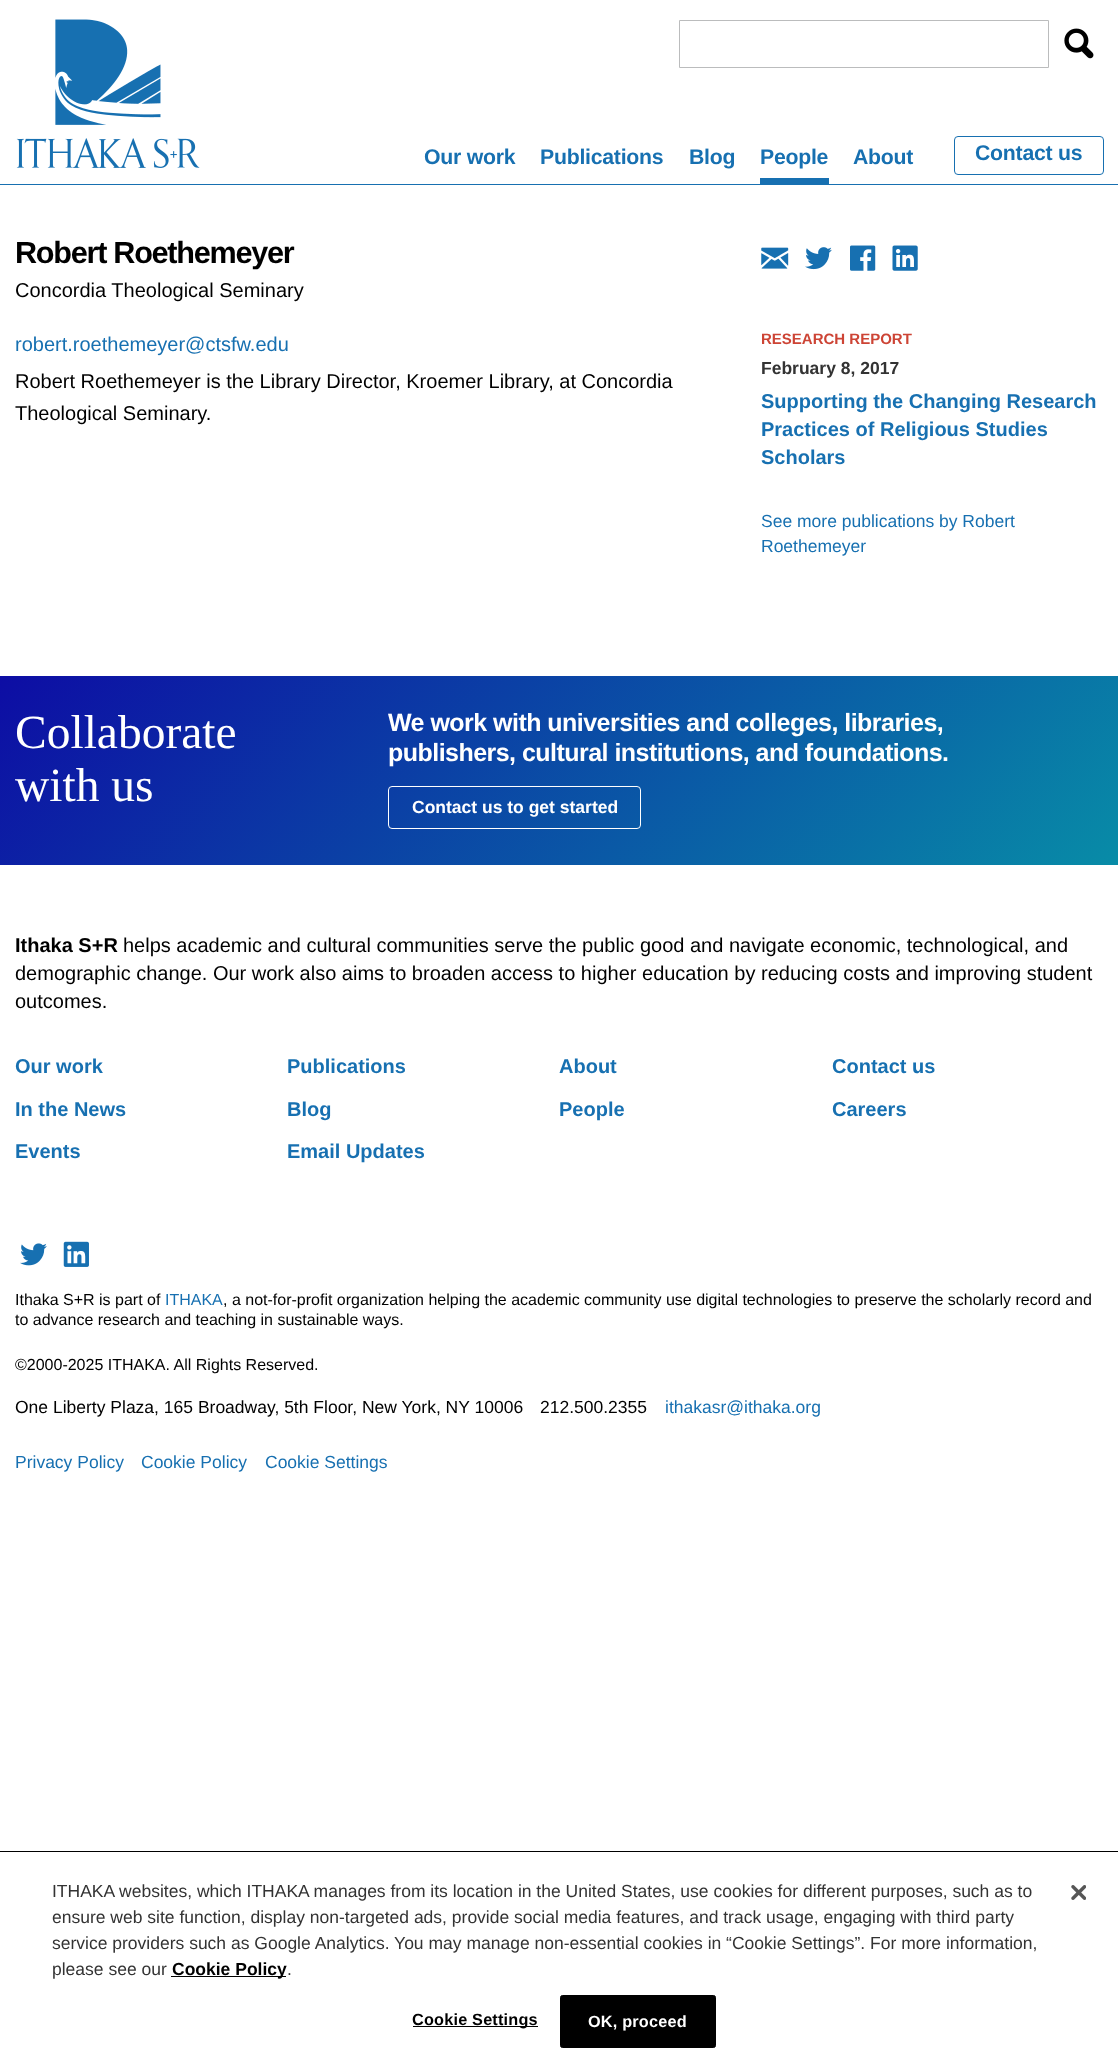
<svg xmlns="http://www.w3.org/2000/svg" width="1118" height="2064" viewBox="0 0 1118 2064">
  <defs>
    <linearGradient id="g1" gradientUnits="userSpaceOnUse" x1="233" y1="444" x2="886" y2="1098"><stop offset="0" stop-color="#0d0da4"/><stop offset="1" stop-color="#088ca7"/></linearGradient>
  </defs>
  <rect width="100%" height="100%" fill="#fff"/>
  <path d="M0 184h1118v1H0z" fill="#1770b1"/>
  <image x="16" y="19" width="184" height="149" href="img/1.png"/>
  <path d="M679.5 20.5h369v47H679.5z" fill="none" stroke="#bbbcbd"/>
  <image x="1064" y="28" width="30" height="31" href="img/2.png"/>
  <path d="M760 178h69v6H760z" fill="#1770b1"/>
  <rect x="954.5" y="136.5" width="149" height="38" rx="3.5" fill="none" stroke="#1770b1"/>
  <image x="761" y="247" width="28" height="22" href="img/3.png"/>
  <image x="805" y="247" width="27" height="23" href="img/4.png"/>
  <image x="850" y="245" width="26" height="26" href="img/5.png"/>
  <image x="892" y="245" width="26" height="26" href="img/6.png"/>
  <path d="M0 676h1118v189H0z" fill="url(#g1)"/>
  <rect x="388.5" y="786.5" width="252" height="42" rx="3.5" fill="none" stroke="#fff"/>
  <image x="20" y="1243" width="27" height="23" href="img/7.png"/>
  <image x="63" y="1241" width="26" height="26" href="img/8.png"/>
  <path d="M0 1851h1118v1H0z" fill="#000"/>
  <path d="M171 1976h115v1H171z" fill="#000"/>
  <path d="M413 2026h125v1H413z" fill="#000"/>
  <rect x="560.5" y="1995.5" width="155" height="52" rx="2" fill="#000" stroke="#000"/>
  <image x="1071" y="1885" width="15" height="15" href="img/9.png"/>
  <g font-family="Liberation Sans" font-size="21.25" font-weight="bold" letter-spacing="-0.25" fill="#1770b1">
    <text x="424" y="164">Our work</text>
    <text x="540" y="164">Publications</text>
    <text x="689" y="164">Blog</text>
    <text x="760" y="164">People</text>
    <text x="853" y="164">About</text>
    <text x="975" y="160">Contact us</text>
  </g>
  <text x="15" y="263" font-family="Liberation Sans" font-size="30.6" font-weight="bold" letter-spacing="-1.25" fill="#000">Robert Roethemeyer</text>
  <text x="15" y="297" font-family="Liberation Sans" font-size="20" fill="#000">Concordia Theological Seminary</text>
  <text x="15" y="351" font-family="Liberation Sans" font-size="20" fill="#1770b1">robert.roethemeyer@ctsfw.edu</text>
  <g font-family="Liberation Sans" font-size="20" fill="#000">
    <text x="15" y="388">Robert Roethemeyer is the Library Director, Kroemer Library, at Concordia</text>
    <text x="15" y="420">Theological Seminary.</text>
  </g>
  <text x="761" y="344" font-family="Liberation Sans" font-size="15" font-weight="bold" fill="#cd4435">RESEARCH REPORT</text>
  <text x="761" y="374" font-family="Liberation Sans" font-size="17.5" font-weight="bold" fill="#333">February 8, 2017</text>
  <g font-family="Liberation Sans" font-size="20" font-weight="bold" fill="#1770b1">
    <text x="761" y="408">Supporting the Changing Research</text>
    <text x="761" y="436">Practices of Religious Studies</text>
    <text x="761" y="464">Scholars</text>
  </g>
  <g font-family="Liberation Sans" font-size="17.5" fill="#1770b1">
    <text x="761" y="527">See more publications by Robert</text>
    <text x="761" y="552">Roethemeyer</text>
  </g>
  <g font-family="Liberation Serif" font-size="47.5" fill="#fff">
    <text x="15" y="748">Collaborate</text>
    <text x="15" y="801">with us</text>
  </g>
  <g font-family="Liberation Sans" font-size="25" font-weight="bold" letter-spacing="-0.53" fill="#fff">
    <text x="388" y="731">We work with universities and colleges, libraries,</text>
    <text x="388" y="761">publishers, cultural institutions, and foundations.</text>
  </g>
  <text x="412" y="813" font-family="Liberation Sans" font-size="17.5" font-weight="bold" fill="#fff">Contact us to get started</text>
  <text x="15" y="952" font-family="Liberation Sans" font-size="20" font-weight="bold" fill="#000">Ithaka S+R</text>
  <g font-family="Liberation Sans" font-size="20" fill="#000">
    <text x="123" y="952">helps academic and cultural communities serve the public good and navigate economic, technological, and</text>
    <text x="15" y="980">demographic change. Our work also aims to broaden access to higher education by reducing costs and improving student</text>
    <text x="15" y="1008">outcomes.</text>
  </g>
  <g font-family="Liberation Sans" font-size="20" font-weight="bold" fill="#1770b1">
    <text x="15" y="1073">Our work</text>
    <text x="287" y="1073">Publications</text>
    <text x="559" y="1073">About</text>
    <text x="832" y="1073">Contact us</text>
    <text x="15" y="1116">In the News</text>
    <text x="287" y="1116">Blog</text>
    <text x="559" y="1116">People</text>
    <text x="832" y="1116">Careers</text>
    <text x="15" y="1158">Events</text>
    <text x="287" y="1158">Email Updates</text>
  </g>
  <text x="15" y="1305" font-family="Liberation Sans" font-size="16" fill="#000">Ithaka S+R is part of</text>
  <text x="165" y="1305" font-family="Liberation Sans" font-size="16" fill="#1770b1">ITHAKA</text>
  <g font-family="Liberation Sans" font-size="16" fill="#000">
    <text x="223" y="1305">, a not-for-profit organization helping the academic community use digital technologies to preserve the scholarly record and</text>
    <text x="15" y="1325">to advance research and teaching in sustainable ways.</text>
    <text x="15" y="1370">©2000-2025 ITHAKA. All Rights Reserved.</text>
  </g>
  <g font-family="Liberation Sans" font-size="17.5" fill="#000">
    <text x="15" y="1413">One Liberty Plaza, 165 Broadway, 5th Floor, New York, NY 10006</text>
    <text x="540" y="1413">212.500.2355</text>
  </g>
  <g font-family="Liberation Sans" font-size="17.5" fill="#1770b1">
    <text x="665" y="1413">ithakasr@ithaka.org</text>
    <text x="15" y="1468">Privacy Policy</text>
    <text x="141" y="1468">Cookie Policy</text>
    <text x="265" y="1468">Cookie Settings</text>
  </g>
  <g font-family="Liberation Sans" font-size="17.5" fill="#333">
    <text x="52" y="1897">ITHAKA websites, which ITHAKA manages from its location in the United States, use cookies for different purposes, such as to</text>
    <text x="52" y="1923">ensure web site function, display non-targeted ads, provide social media features, and track usage, engaging with third party</text>
    <text x="52" y="1949">service providers such as Google Analytics. You may manage non-essential cookies in “Cookie Settings”. For more information,</text>
    <text x="52" y="1975">please see our</text>
  </g>
  <text x="172" y="1975" font-family="Liberation Sans" font-size="17.5" font-weight="bold" fill="#000">Cookie Policy</text>
  <text x="287" y="1975" font-family="Liberation Sans" font-size="17.5" fill="#333">.</text>
  <text x="412" y="2025" font-family="Liberation Sans" font-size="16.25" font-weight="bold" letter-spacing="0.2" fill="#000">Cookie Settings</text>
  <text x="588" y="2027" font-family="Liberation Sans" font-size="16.25" font-weight="bold" letter-spacing="0.2" fill="#fff">OK, proceed</text>
</svg>
